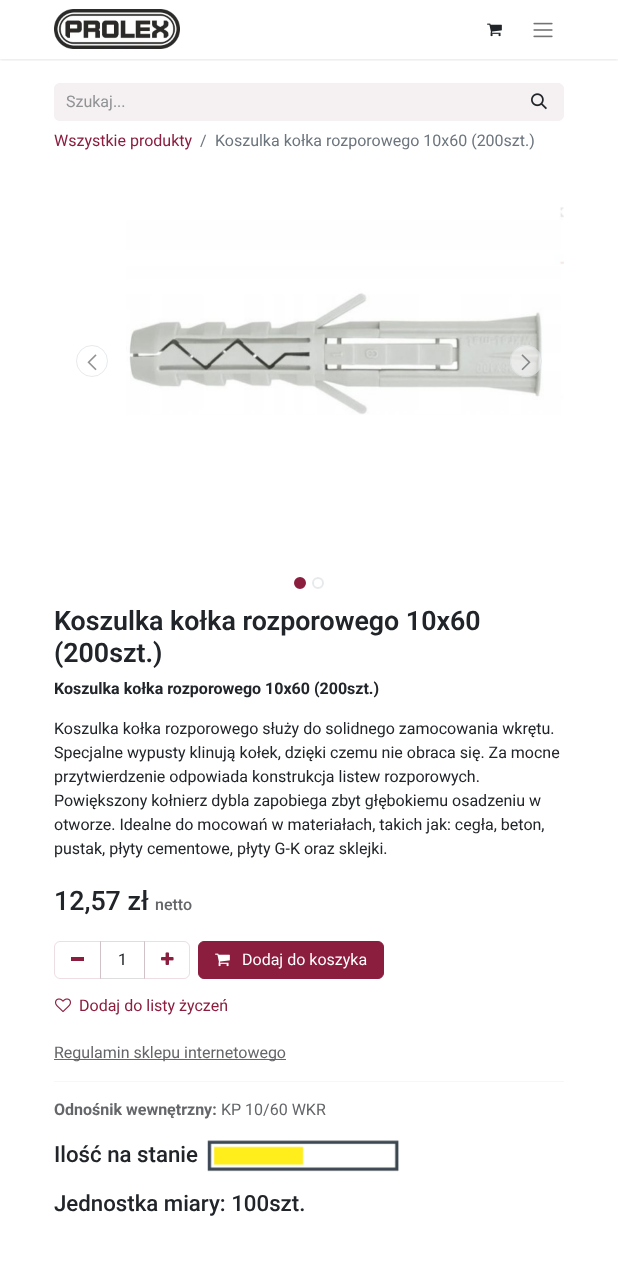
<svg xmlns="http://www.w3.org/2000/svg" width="618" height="1265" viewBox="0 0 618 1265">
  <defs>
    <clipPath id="clip1"><path d="M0 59h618v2H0z"/></clipPath>
  </defs>
  <rect width="100%" height="100%" fill="#fff"/>
  <g clip-path="url(#clip1)">
    <path d="M0 1h618v59H0z" fill="#0000001a" filter="blur(1.5px)"/>
  </g>
  <image x="54" y="9" width="126" height="40" href="img/1.png"/>
  <image x="487" y="23" width="15" height="14" href="img/2.png"/>
  <image x="533" y="22" width="20" height="16" href="img/3.png"/>
  <path d="M60 83H515V121H60C56.5 121 54 118.5 54 115V89C54 85.5 56.5 83 60 83Z" fill="#f5f0f2"/>
  <path d="M514.5 83.5H558C561 83.5 563.5 86 563.5 89V115C563.5 118 561 120.5 558 120.5H514.5Z" fill="#f5f0f2" stroke="#f5f0f2"/>
  <image x="531" y="93" width="16" height="17" href="img/4.png"/>
  <circle cx="92" cy="361" r="15.5" fill="none" stroke="#e7eaed"/>
  <image x="87" y="354" width="10" height="17" href="img/5.png"/>
  <image x="126" y="207" width="438" height="208" href="img/6.png"/>
  <circle cx="526" cy="361" r="16" fill="#ffffff80"/>
  <circle cx="526" cy="361" r="15.5" fill="none" stroke="#ced4da80"/>
  <image x="521" y="354" width="10" height="17" href="img/7.png"/>
  <circle cx="300" cy="583" r="5" fill="#8b1e3f" stroke="#8b1e3f" stroke-width="2"/>
  <circle cx="318" cy="583" r="5" fill="none" stroke="#e7eaed" stroke-width="2"/>
  <path d="M100.5 941.5h44v37H100.5z" fill="none" stroke="#dededf"/>
  <path d="M60 941.5H100.5V978.5H60C57 978.5 54.5 976 54.5 973V947C54.5 944 57 941.5 60 941.5Z" fill="none" stroke="#8b1e3f26"/>
  <path d="M71 957h13v4H71z" fill="#8b1e3f"/>
  <path d="M144.5 941.5H184C187 941.5 189.5 944 189.5 947V973C189.5 976 187 978.5 184 978.5H144.5Z" fill="none" stroke="#8b1e3f26"/>
  <image x="161" y="952" width="13" height="13" href="img/8.png"/>
  <rect x="198.5" y="941.5" width="185" height="37" rx="5.5" fill="#8b1e3f" stroke="#8b1e3f"/>
  <image x="215" y="953" width="15" height="14" href="img/9.png"/>
  <image x="55" y="998" width="16" height="15" href="img/10.png"/>
  <path d="M54 1059h232v1H54z" fill="#646669"/>
  <path d="M54 1081h510v1H54z" fill="#f7f7f7"/>
  <image x="207" y="1140" width="193" height="32" href="img/11.png"/>
  <text x="66" y="107" font-family="Roboto" font-size="16" fill="#909294">Szukaj...</text>
  <text x="54" y="146" font-family="Roboto" font-size="16" fill="#8b1e3f">Wszystkie produkty</text>
  <g font-family="Roboto" font-size="16" fill="#6c757d">
    <text x="200" y="146">/</text>
    <text x="215" y="146">Koszulka kołka rozporowego 10x60 (200szt.)</text>
  </g>
  <g font-family="Roboto" font-size="26.75" font-weight="600" fill="#212529">
    <text x="54" y="630">Koszulka kołka rozporowego 10x60</text>
    <text x="54" y="662">(200szt.)</text>
  </g>
  <text x="54" y="694" font-family="Roboto" font-size="16" font-weight="bold" fill="#212529">Koszulka kołka rozporowego 10x60 (200szt.)</text>
  <g font-family="Roboto" font-size="16" fill="#212529">
    <text x="54" y="734">Koszulka kołka rozporowego służy do solidnego zamocowania wkrętu.</text>
    <text x="54" y="758">Specjalne wypusty klinują kołek, dzięki czemu nie obraca się. Za mocne</text>
    <text x="54" y="782">przytwierdzenie odpowiada konstrukcja listew rozporowych.</text>
    <text x="54" y="806">Powiększony kołnierz dybla zapobiega zbyt głębokiemu osadzeniu w</text>
    <text x="54" y="830">otworze. Idealne do mocowań w materiałach, takich jak: cegła, beton,</text>
    <text x="54" y="854">pustak, płyty cementowe, płyty G-K oraz sklejki.</text>
  </g>
  <text x="54" y="910" font-family="Roboto" font-size="26.75" font-weight="500" fill="#212529">12,57 zł</text>
  <text x="155" y="910" font-family="Roboto" font-size="16" font-weight="500" fill="#646669">netto</text>
  <text x="118" y="965" font-family="Roboto" font-size="16" fill="#212529">1</text>
  <text x="242" y="965" font-family="Roboto" font-size="16" fill="#fff">Dodaj do koszyka</text>
  <text x="79" y="1011" font-family="Roboto" font-size="16" fill="#8b1e3f">Dodaj do listy życzeń</text>
  <text x="54" y="1058" font-family="Roboto" font-size="16" fill="#646669">Regulamin sklepu internetowego</text>
  <text x="54" y="1115" font-family="Roboto" font-size="16" font-weight="bold" fill="#646669">Odnośnik wewnętrzny:</text>
  <text x="221" y="1115" font-family="Roboto" font-size="16" fill="#646669">KP 10/60 WKR</text>
  <g font-family="Roboto" font-size="22.25" font-weight="500" fill="#212529">
    <text x="54" y="1162">Ilość na stanie</text>
    <text x="54" y="1211">Jednostka miary: 100szt.</text>
  </g>
</svg>
